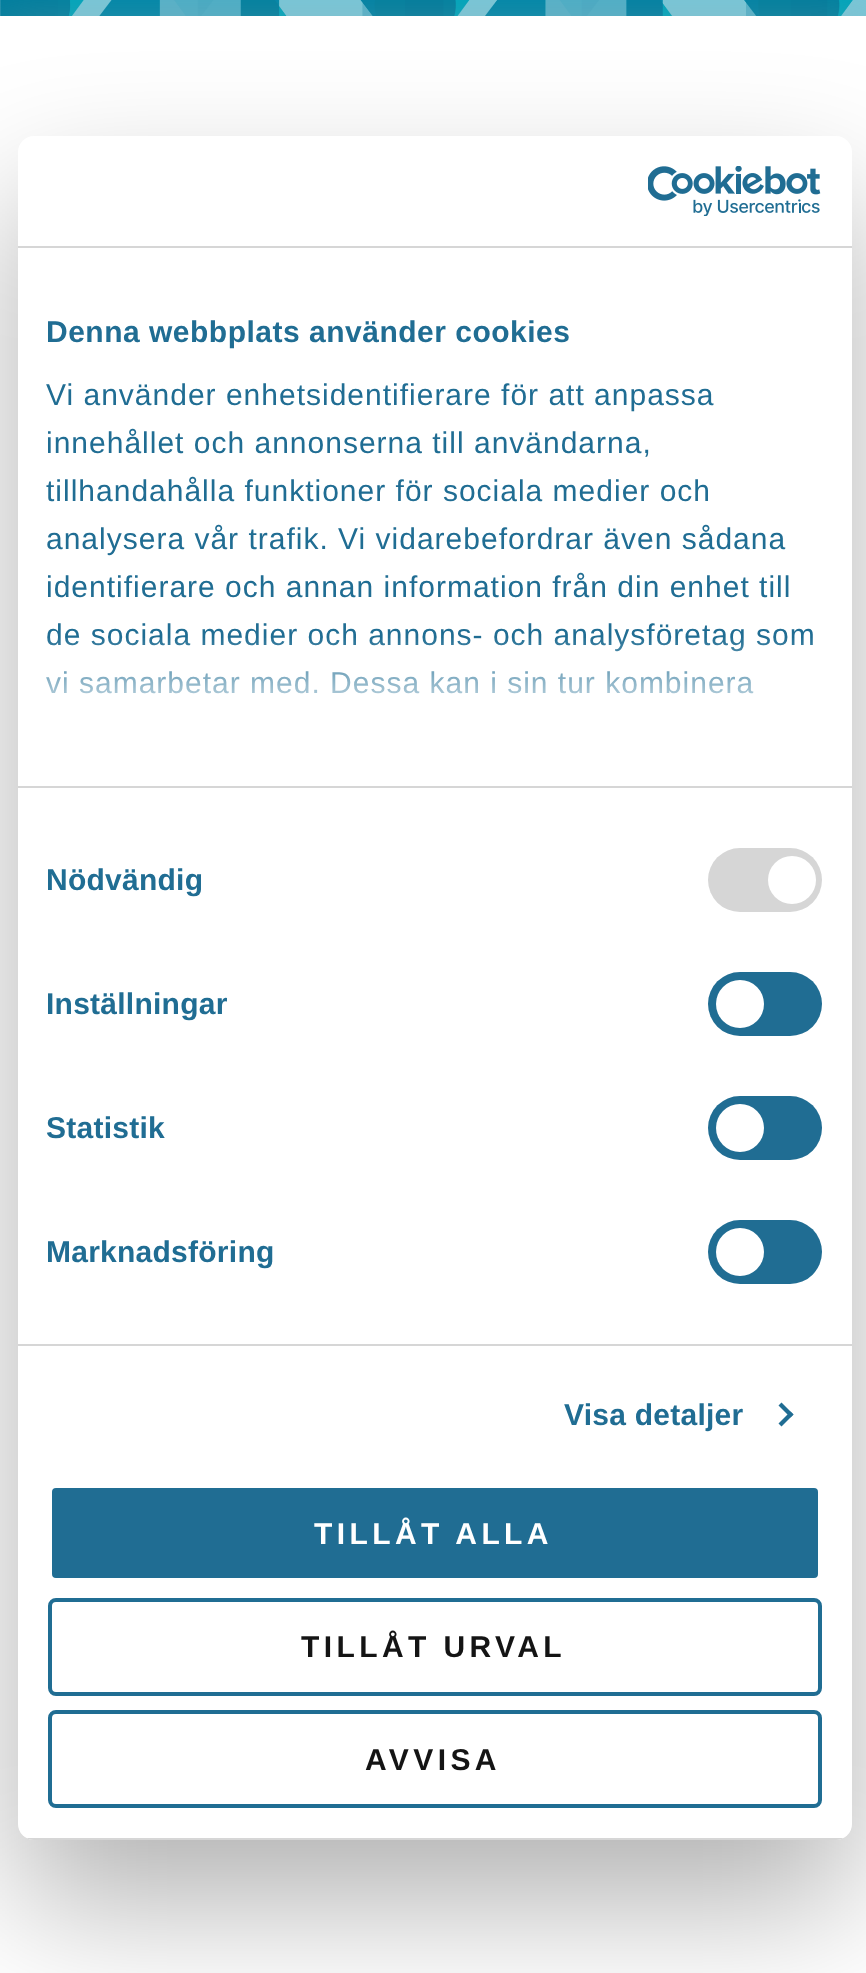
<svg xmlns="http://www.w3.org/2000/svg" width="866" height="1973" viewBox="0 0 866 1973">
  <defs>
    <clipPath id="clip1"><path d="M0 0h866v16H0z"/></clipPath>
    <clipPath id="clip2"><rect x="18" y="136" width="834" height="1704" rx="16"/></clipPath>
    <linearGradient id="g1" gradientUnits="userSpaceOnUse" x1="421" y1="786" x2="421" y2="636"><stop offset="0" stop-color="#fff"/><stop offset="0.5" stop-color="#fff" stop-opacity="0.8"/><stop offset="1" stop-color="#fff" stop-opacity="0"/></linearGradient>
  </defs>
  <rect width="100%" height="100%" fill="#fff"/>
  <image x="0" y="0" width="866" height="16" href="img/1.png"/>
  <g clip-path="url(#clip1)">
    <path d="M-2 34h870v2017H-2z" fill="#a8a8a880" filter="blur(26px)"/>
  </g>
  <rect x="18" y="200" width="834" height="1704" rx="16" fill="#0000004d" filter="blur(68px)"/>
  <rect x="18" y="136" width="834" height="1704" rx="16" fill="#fff"/>
  <path d="M18 246h834v2H18z" fill="#d6d6d6"/>
  <image x="648" y="166" width="173" height="50" href="img/2.png"/>
  <path d="M18 786h834v2H18z" fill="#d6d6d6"/>
  <path d="M18 1344h834v2H18z" fill="#d6d6d6"/>
  <rect x="708" y="848" width="114" height="64" rx="32" fill="#d6d6d6"/>
  <circle cx="792" cy="880" r="24" fill="#fff"/>
  <rect x="708" y="972" width="114" height="64" rx="32" fill="#206d93"/>
  <circle cx="740" cy="1004" r="24" fill="#fff"/>
  <rect x="708" y="1096" width="114" height="64" rx="32" fill="#206d93"/>
  <circle cx="740" cy="1128" r="24" fill="#fff"/>
  <rect x="708" y="1220" width="114" height="64" rx="32" fill="#206d93"/>
  <circle cx="740" cy="1252" r="24" fill="#fff"/>
  <path d="M781.5 1402.5L793.5 1414.5L790.5 1417.5L778.5 1405.5Z" fill="#206d93"/>
  <path d="M790.5 1411.5L793.5 1414.5L781.5 1426.5L778.5 1423.5Z" fill="#206d93"/>
  <g clip-path="url(#clip2)">
    <path d="M18 1838h834v2H18z" fill="#d6d6d6"/>
  </g>
  <rect x="50" y="1486" width="770" height="94" rx="6" fill="#206d93" stroke="#fff" stroke-width="4"/>
  <rect x="50" y="1600" width="770" height="94" rx="6" fill="none" stroke="#206d93" stroke-width="4"/>
  <rect x="50" y="1712" width="770" height="94" rx="6" fill="none" stroke="#206d93" stroke-width="4"/>
  <text x="46" y="342" font-family="Liberation Sans" font-size="30" font-weight="bold" letter-spacing="0.5" fill="#206d93">Denna webbplats använder cookies</text>
  <g font-family="Liberation Sans" font-size="30" letter-spacing="1" fill="#206d93">
    <text x="46" y="405">Vi använder enhetsidentifierare för att anpassa</text>
    <text x="46" y="453">innehållet och annonserna till användarna,</text>
    <text x="46" y="501">tillhandahålla funktioner för sociala medier och</text>
    <text x="46" y="549">analysera vår trafik. Vi vidarebefordrar även sådana</text>
    <text x="46" y="597">identifierare och annan information från din enhet till</text>
    <text x="46" y="645">de sociala medier och annons- och analysföretag som</text>
    <text x="46" y="693">vi samarbetar med. Dessa kan i sin tur kombinera</text>
  </g>
  <path d="M46 638h767v56H46z" fill="url(#g1)"/>
  <g font-family="Liberation Sans" font-size="30" font-weight="bold" letter-spacing="0.25" fill="#206d93">
    <text x="46" y="890">Nödvändig</text>
    <text x="46" y="1014">Inställningar</text>
    <text x="46" y="1138">Statistik</text>
    <text x="46" y="1262">Marknadsföring</text>
    <text x="564" y="1425">Visa detaljer</text>
  </g>
  <text x="314" y="1544" font-family="Liberation Sans" font-size="30" font-weight="bold" letter-spacing="4.4" fill="#fff">TILLÅT ALLA</text>
  <g font-family="Liberation Sans" font-size="30" font-weight="bold" letter-spacing="4.4" fill="#141414">
    <text x="301" y="1657">TILLÅT URVAL</text>
    <text x="365" y="1770">AVVISA</text>
  </g>
</svg>
